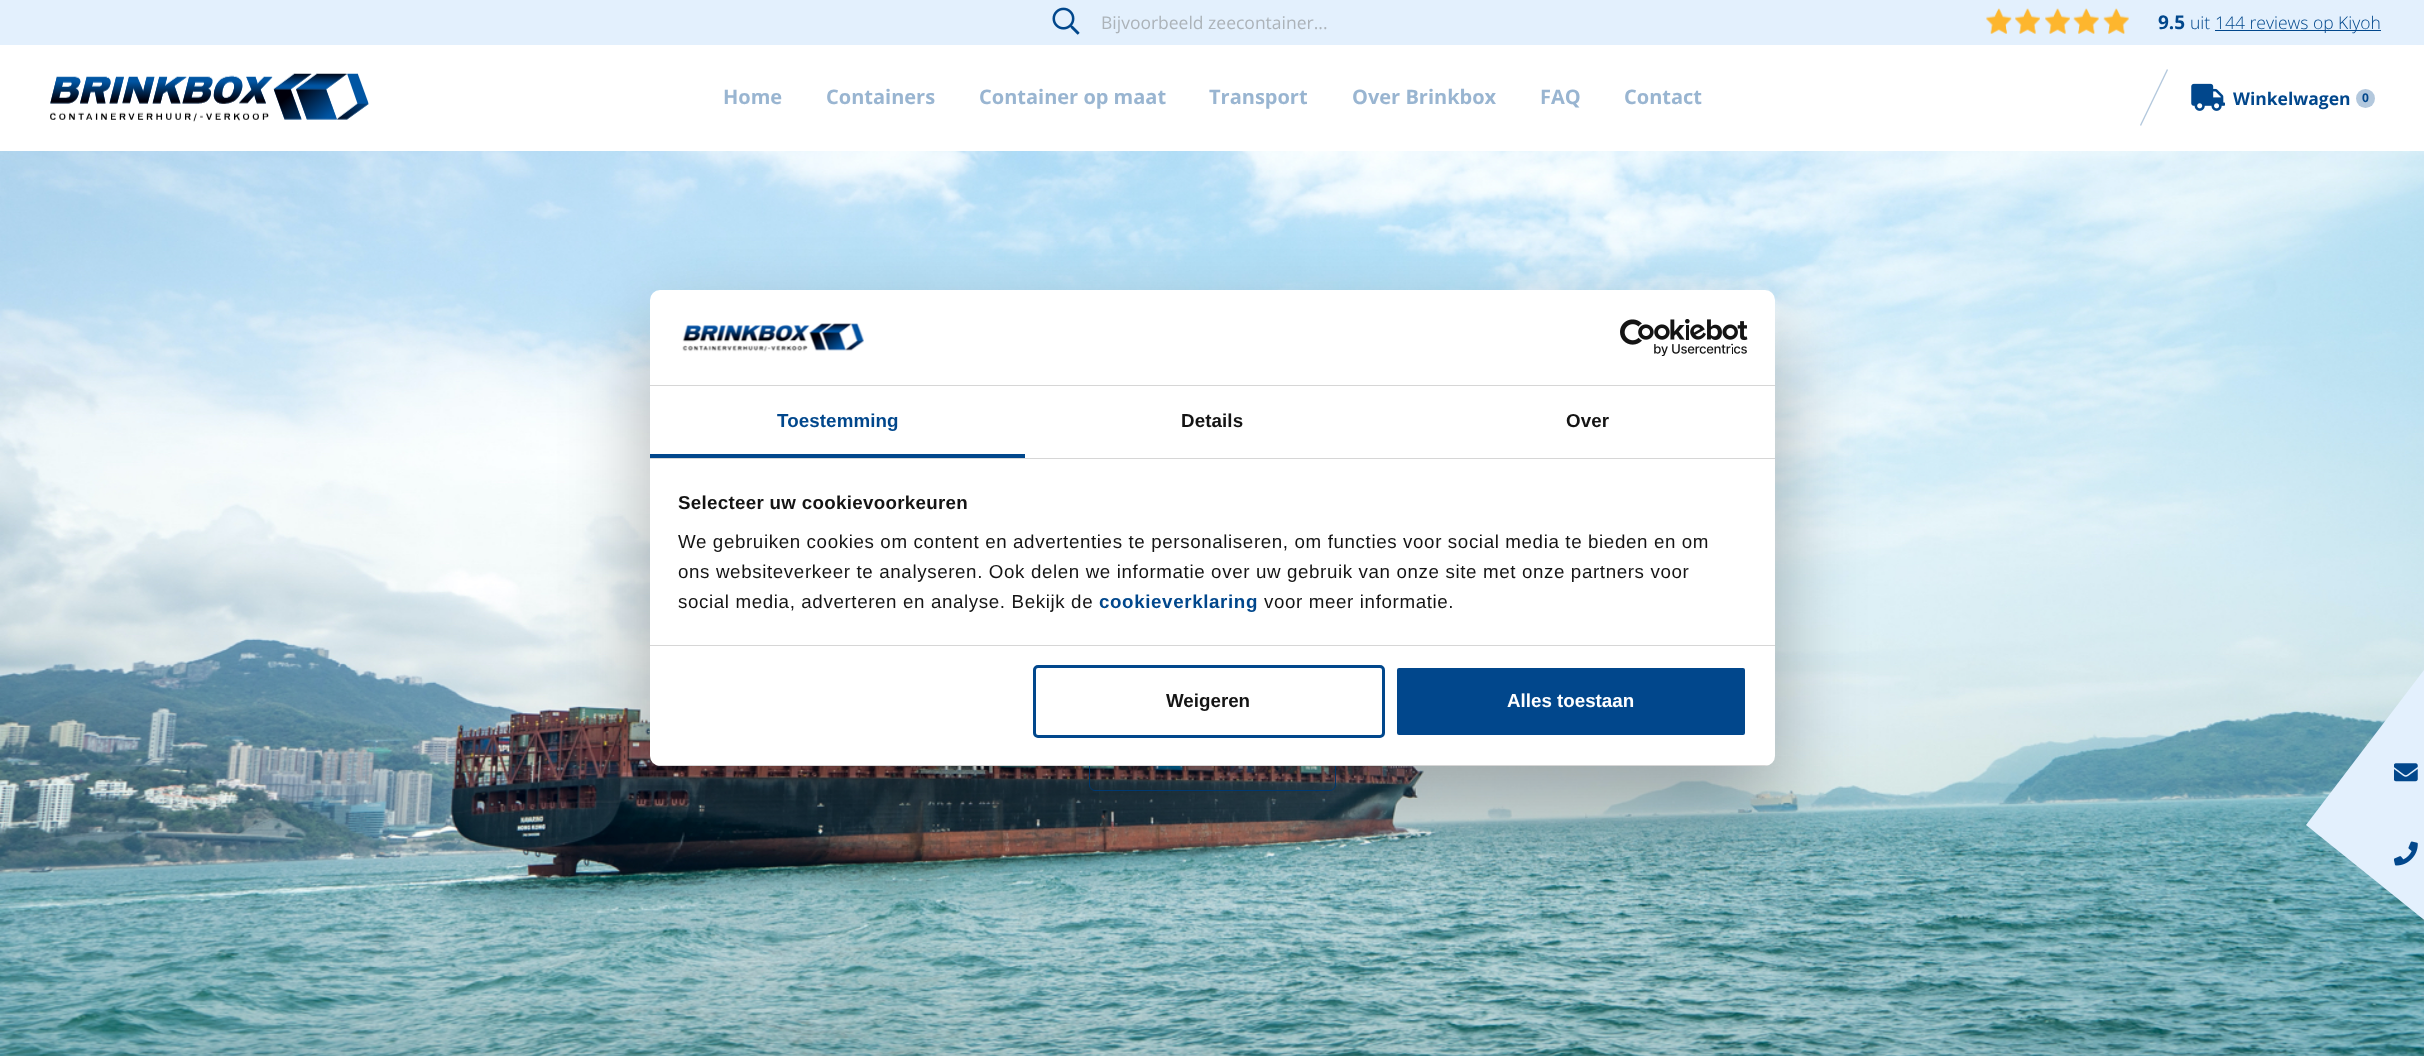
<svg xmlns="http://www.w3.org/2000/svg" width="2424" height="1056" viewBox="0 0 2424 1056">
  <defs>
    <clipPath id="clip1"><rect x="650" y="290" width="1125" height="476" rx="10"/></clipPath>
  </defs>
  <rect width="100%" height="100%" fill="#fff"/>
  <path d="M0 0h2424v45H0z" fill="#e3f0fd"/>
  <image x="1052" y="7" width="28" height="28" href="img/1.png"/>
  <image x="1986" y="8" width="26" height="26" href="img/2.png"/>
  <image x="2015" y="8" width="25" height="26" href="img/3.png"/>
  <image x="2045" y="8" width="25" height="26" href="img/3.png"/>
  <image x="2073" y="8" width="26" height="26" href="img/4.png"/>
  <image x="2103" y="8" width="26" height="26" href="img/5.png"/>
  <path d="M2215 30h166v1H2215z" fill="#01478c"/>
  <image x="50" y="73" width="319" height="49" href="img/6.png"/>
  <path d="M2167 69L2168 70L2141 126L2140 125Z" fill="#b3c8dd"/>
  <image x="2191" y="83" width="34" height="28" href="img/7.png"/>
  <circle cx="2365.5" cy="98.5" r="9.5" fill="#b3c8dd"/>
  <image x="0" y="151" width="2424" height="905" href="img/8.png"/>
  <rect x="1089.5" y="724.5" width="246" height="66" rx="5.5" fill="none" stroke="#01478c"/>
  <rect x="650" y="330" width="1125" height="476" rx="10" fill="#0000004d" filter="blur(42.5px)"/>
  <rect x="650" y="290" width="1125" height="476" rx="10" fill="#fff"/>
  <path d="M650 385h1125v1H650z" fill="#d6d6d6"/>
  <image x="682" y="323" width="182" height="29" href="img/9.png"/>
  <image x="1620" y="319" width="128" height="37" href="img/10.png"/>
  <path d="M650 458h1125v1H650z" fill="#d6d6d6"/>
  <path d="M650 454h375v4H650z" fill="#01478c"/>
  <path d="M650 645h1125v1H650z" fill="#d6d6d6"/>
  <g clip-path="url(#clip1)">
    <path d="M650 765h1125v1H650z" fill="#d6d6d6"/>
  </g>
  <rect x="1034.5" y="666.5" width="349" height="70" rx="3.5" fill="none" stroke="#01478c" stroke-width="3"/>
  <rect x="1395.5" y="666.5" width="351" height="70" rx="3.5" fill="#01478c" stroke="#fff" stroke-width="3"/>
  <path d="M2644 381V825H2306Z" fill="#e3f0fd"/>
  <image x="2394" y="763" width="24" height="19" href="img/11.png"/>
  <path d="M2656 825V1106L2306 825Z" fill="#e3f0fd"/>
  <image x="2394" y="841" width="24" height="25" href="img/12.png"/>
  <text x="1101" y="29" font-family="Open Sans" font-size="17.5" fill="#acb3b9">Bijvoorbeeld zeecontainer...</text>
  <text x="2158" y="29" font-family="Open Sans" font-size="19" font-weight="bold" fill="#01478c">9.5</text>
  <g font-family="Open Sans" font-size="17.5" font-weight="300" fill="#01478c">
    <text x="2190" y="29">uit</text>
    <text x="2215" y="29">144 reviews op Kiyoh</text>
  </g>
  <g font-family="Open Sans" font-size="20" font-weight="bold" fill="#99b5d1">
    <text x="723" y="104">Home</text>
    <text x="826" y="104">Containers</text>
    <text x="979" y="104">Container op maat</text>
    <text x="1209" y="104">Transport</text>
    <text x="1352" y="104">Over Brinkbox</text>
    <text x="1540" y="104">FAQ</text>
    <text x="1624" y="104">Contact</text>
  </g>
  <text x="2233" y="105" font-family="Open Sans" font-size="17.5" font-weight="bold" fill="#01478c">Winkelwagen</text>
  <text x="2362" y="102" font-family="Open Sans" font-size="12" font-weight="bold" fill="#01478c">0</text>
  <text x="777" y="427" font-family="Liberation Sans" font-size="18.75" font-weight="bold" letter-spacing="0.1" fill="#01478c">Toestemming</text>
  <g font-family="Liberation Sans" font-size="18.75" font-weight="bold" letter-spacing="0.1" fill="#141414">
    <text x="1181" y="427">Details</text>
    <text x="1566" y="427">Over</text>
  </g>
  <text x="678" y="509" font-family="Liberation Sans" font-size="18.75" font-weight="bold" letter-spacing="0.3" fill="#141414">Selecteer uw cookievoorkeuren</text>
  <g font-family="Liberation Sans" font-size="18.75" letter-spacing="0.62" fill="#141414">
    <text x="678" y="548">We gebruiken cookies om content en advertenties te personaliseren, om functies voor social media te bieden en om</text>
    <text x="678" y="578">ons websiteverkeer te analyseren. Ook delen we informatie over uw gebruik van onze site met onze partners voor</text>
    <text x="678" y="608">social media, adverteren en analyse. Bekijk de</text>
  </g>
  <text x="1099" y="608" font-family="Liberation Sans" font-size="18.75" font-weight="bold" letter-spacing="0.62" fill="#01478c">cookieverklaring</text>
  <text x="1264" y="608" font-family="Liberation Sans" font-size="18.75" letter-spacing="0.62" fill="#141414">voor meer informatie.</text>
  <text x="1166" y="707" font-family="Liberation Sans" font-size="18.75" font-weight="bold" fill="#141414">Weigeren</text>
  <text x="1507" y="707" font-family="Liberation Sans" font-size="18.75" font-weight="bold" fill="#fff">Alles toestaan</text>
</svg>
